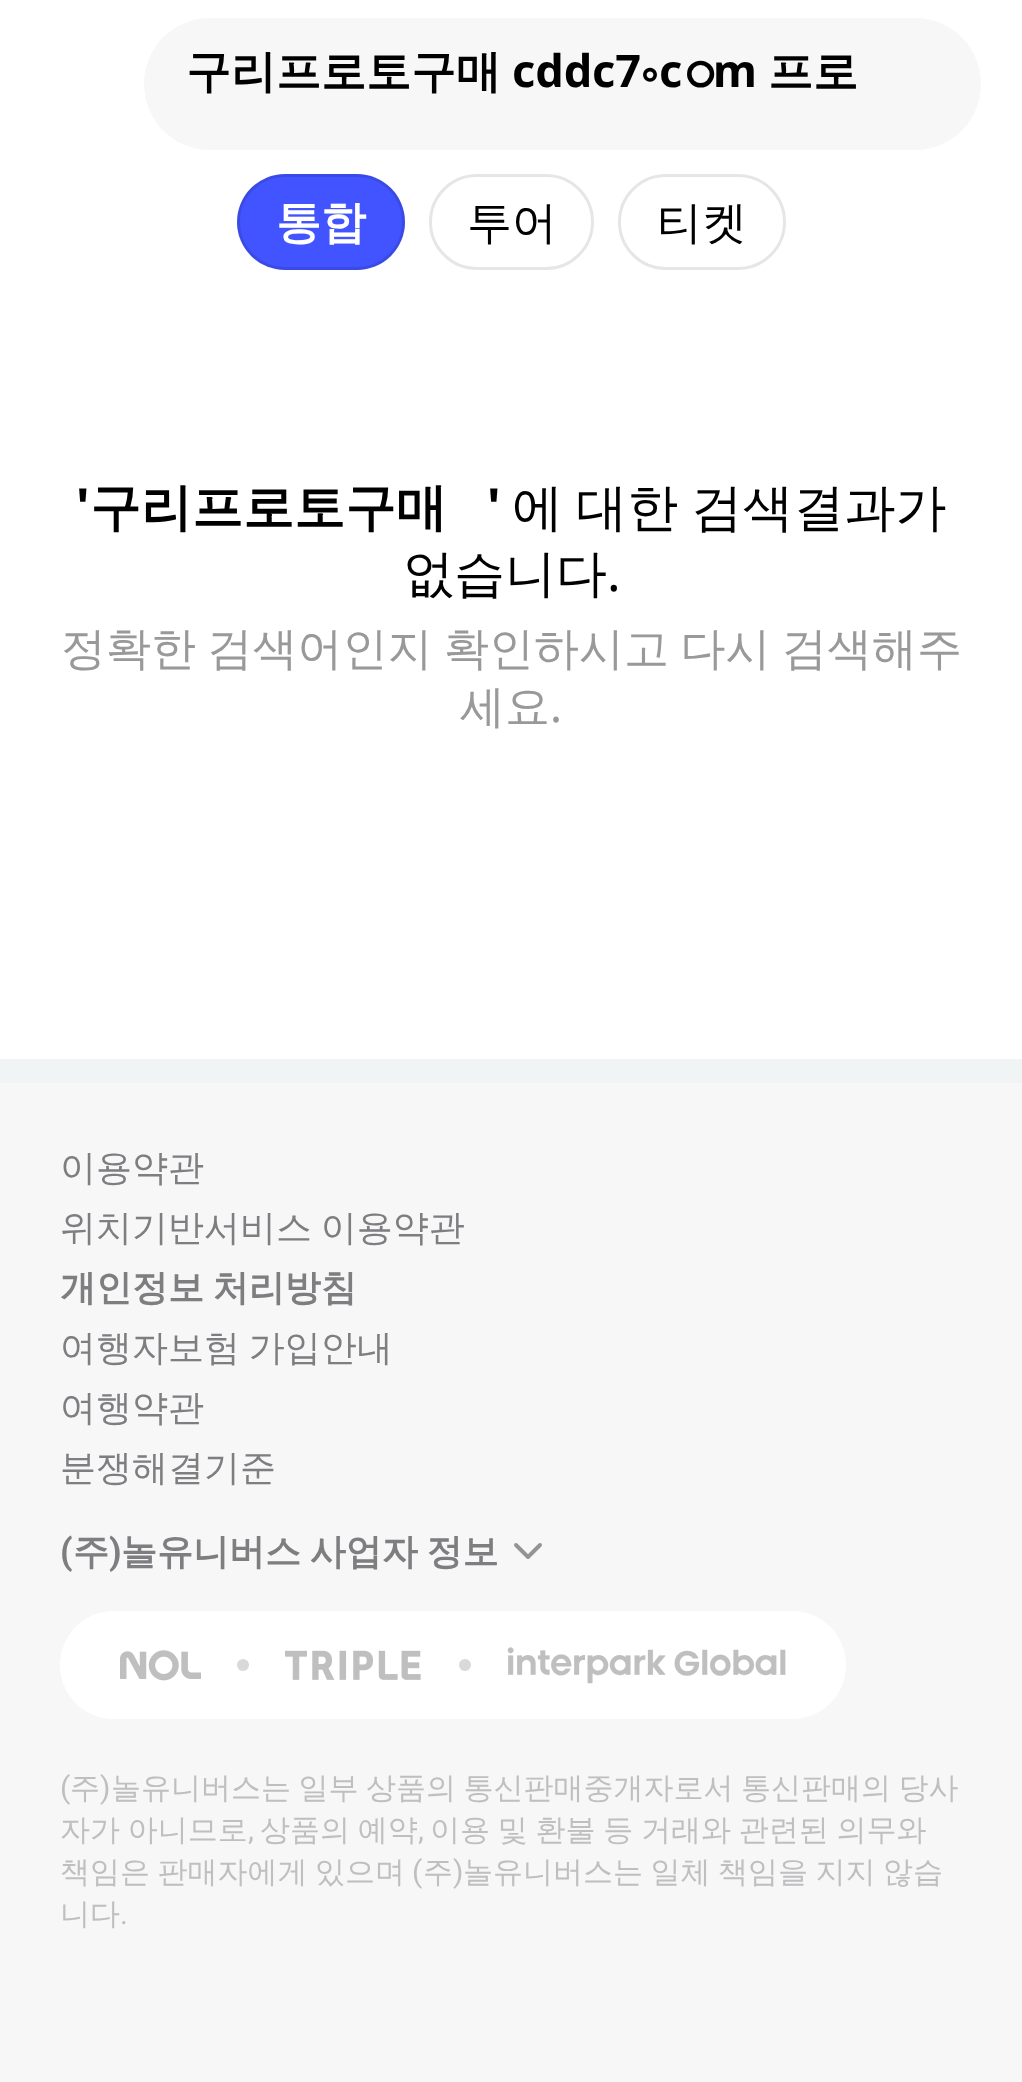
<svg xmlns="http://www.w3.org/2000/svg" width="1022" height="2082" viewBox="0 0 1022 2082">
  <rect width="100%" height="100%" fill="#fff"/>
  <rect x="144" y="18" width="837" height="132" rx="66" fill="#f7f7f8"/>
  <rect x="237" y="174" width="168" height="96" rx="48" fill="#4154ff"/>
  <rect x="238.5" y="175.5" width="165" height="93" rx="46.5" fill="none" stroke="#0000001a" stroke-width="3"/>
  <rect x="430.5" y="175.5" width="162" height="93" rx="46.5" fill="none" stroke="#e6e6e6" stroke-width="3"/>
  <rect x="619.5" y="175.5" width="165" height="93" rx="46.5" fill="none" stroke="#e6e6e6" stroke-width="3"/>
  <path d="M0 1059h1022v24H0z" fill="#f0f4f4"/>
  <path d="M0 1083h1022v999H0z" fill="#f7f7f8"/>
  <path d="M540 1545L528 1557L516 1545" fill="none" stroke="#949496" stroke-width="3.9" stroke-linecap="round" stroke-linejoin="round"/>
  <rect x="60" y="1611" width="786" height="108" rx="54" fill="#fff"/>
  <image x="120" y="1650" width="81" height="31" href="img/1.png"/>
  <circle cx="243" cy="1665" r="6" fill="#d9d9d9"/>
  <image x="285" y="1650" width="136" height="30" href="img/2.png"/>
  <circle cx="465" cy="1665" r="6" fill="#d9d9d9"/>
  <image x="507" y="1647" width="279" height="37" href="img/3.png"/>
  <text x="186" y="87" font-family="WenQuanYi Zen Hei" font-size="45" font-weight="bold" fill="#000">구리프로토구매</text>
  <text x="512" y="87" font-family="Noto Sans" font-size="45" font-weight="bold" fill="#000">cddc7</text>
  <text x="641" y="87" font-family="Noto Serif Tibetan" font-size="45" font-weight="bold" fill="#000">༚</text>
  <text x="659" y="87" font-family="Noto Sans" font-size="45" font-weight="bold" fill="#000">c</text>
  <text x="683" y="87" font-family="FreeSans" font-size="45" font-weight="bold" fill="#000">ഠ</text>
  <text x="713" y="87" font-family="Noto Sans" font-size="45" font-weight="bold" fill="#000">m</text>
  <text x="768" y="87" font-family="WenQuanYi Zen Hei" font-size="45" font-weight="bold" fill="#000">프로</text>
  <text x="276" y="238" font-family="WenQuanYi Zen Hei" font-size="45" font-weight="bold" fill="#fff">통합</text>
  <g font-family="WenQuanYi Zen Hei" font-size="45" font-weight="500" fill="#000">
    <text x="467" y="238">투어</text>
    <text x="657" y="238">티켓</text>
  </g>
  <text x="76" y="525" font-family="Noto Sans" font-size="51" font-weight="bold" fill="#000">'</text>
  <text x="90" y="525" font-family="WenQuanYi Zen Hei" font-size="51" font-weight="bold" fill="#000">구리프로토구매</text>
  <text x="487" y="525" font-family="Noto Sans" font-size="51" font-weight="bold" fill="#000">'</text>
  <g font-family="WenQuanYi Zen Hei" font-size="51" font-weight="500" fill="#000">
    <text x="512" y="525" word-spacing="-2">에 대한 검색결과가</text>
    <text x="403" y="591">없습니다</text>
  </g>
  <text x="607" y="591" font-family="Noto Sans" font-size="51" fill="#000">.</text>
  <g font-family="WenQuanYi Zen Hei" font-size="45" font-weight="500" fill="#999">
    <text x="61" y="664" word-spacing="-2">정확한 검색어인지 확인하시고 다시 검색해주</text>
    <text x="460" y="722">세요</text>
  </g>
  <text x="550" y="722" font-family="Noto Sans" font-size="45" fill="#999">.</text>
  <g font-family="WenQuanYi Zen Hei" font-size="36" font-weight="500" fill="#7e7e81">
    <text x="60" y="1180">이용약관</text>
    <text x="60" y="1240" word-spacing="-2">위치기반서비스 이용약관</text>
  </g>
  <text x="60" y="1300" word-spacing="-2" font-family="WenQuanYi Zen Hei" font-size="36" font-weight="bold" fill="#7e7e81">개인정보 처리방침</text>
  <g font-family="WenQuanYi Zen Hei" font-size="36" font-weight="500" fill="#7e7e81">
    <text x="60" y="1360" word-spacing="-2">여행자보험 가입안내</text>
    <text x="60" y="1420">여행약관</text>
    <text x="60" y="1480">분쟁해결기준</text>
  </g>
  <text x="60" y="1564" font-family="Roboto" font-size="36" font-weight="bold" fill="#7e7e81">(</text>
  <text x="73" y="1564" font-family="WenQuanYi Zen Hei" font-size="36" font-weight="bold" fill="#7e7e81">주</text>
  <text x="109" y="1564" font-family="Roboto" font-size="36" font-weight="bold" fill="#7e7e81">)</text>
  <text x="121" y="1564" word-spacing="-2" font-family="WenQuanYi Zen Hei" font-size="36" font-weight="bold" fill="#7e7e81">놀유니버스 사업자 정보</text>
  <text x="60" y="1798" font-family="Roboto" font-size="30" fill="#bfbfc0">(</text>
  <text x="70" y="1798" font-family="WenQuanYi Zen Hei" font-size="30" font-weight="500" fill="#bfbfc0">주</text>
  <text x="100" y="1798" font-family="Roboto" font-size="30" fill="#bfbfc0">)</text>
  <g font-family="WenQuanYi Zen Hei" font-size="30" font-weight="500" fill="#bfbfc0">
    <text x="111" y="1798">놀유니버스</text>
    <text x="261" y="1798" word-spacing="-1.5">는 일부 상품의 통신판매중개자로서 통신판매의 당사</text>
    <text x="60" y="1840" word-spacing="-1.25">자가 아니므로</text>
  </g>
  <text x="248" y="1840" font-family="Roboto" font-size="30" fill="#bfbfc0">,</text>
  <text x="260" y="1840" word-spacing="-1.25" font-family="WenQuanYi Zen Hei" font-size="30" font-weight="500" fill="#bfbfc0">상품의 예약</text>
  <text x="418" y="1840" font-family="Roboto" font-size="30" fill="#bfbfc0">,</text>
  <g font-family="WenQuanYi Zen Hei" font-size="30" font-weight="500" fill="#bfbfc0">
    <text x="430" y="1840" word-spacing="-1.25">이용 및 환불 등 거래와 관련된 의무와</text>
    <text x="60" y="1882" word-spacing="-1.5">책임은 판매자에게 있으며</text>
  </g>
  <text x="412" y="1882" font-family="Roboto" font-size="30" fill="#bfbfc0">(</text>
  <text x="423" y="1882" font-family="WenQuanYi Zen Hei" font-size="30" font-weight="500" fill="#bfbfc0">주</text>
  <text x="453" y="1882" font-family="Roboto" font-size="30" fill="#bfbfc0">)</text>
  <g font-family="WenQuanYi Zen Hei" font-size="30" font-weight="500" fill="#bfbfc0">
    <text x="463" y="1882">놀유니버스</text>
    <text x="613" y="1882" word-spacing="-1.5">는 일체 책임을 지지 않습</text>
    <text x="60" y="1924">니다</text>
  </g>
  <text x="120" y="1924" font-family="Roboto" font-size="30" fill="#bfbfc0">.</text>
</svg>
